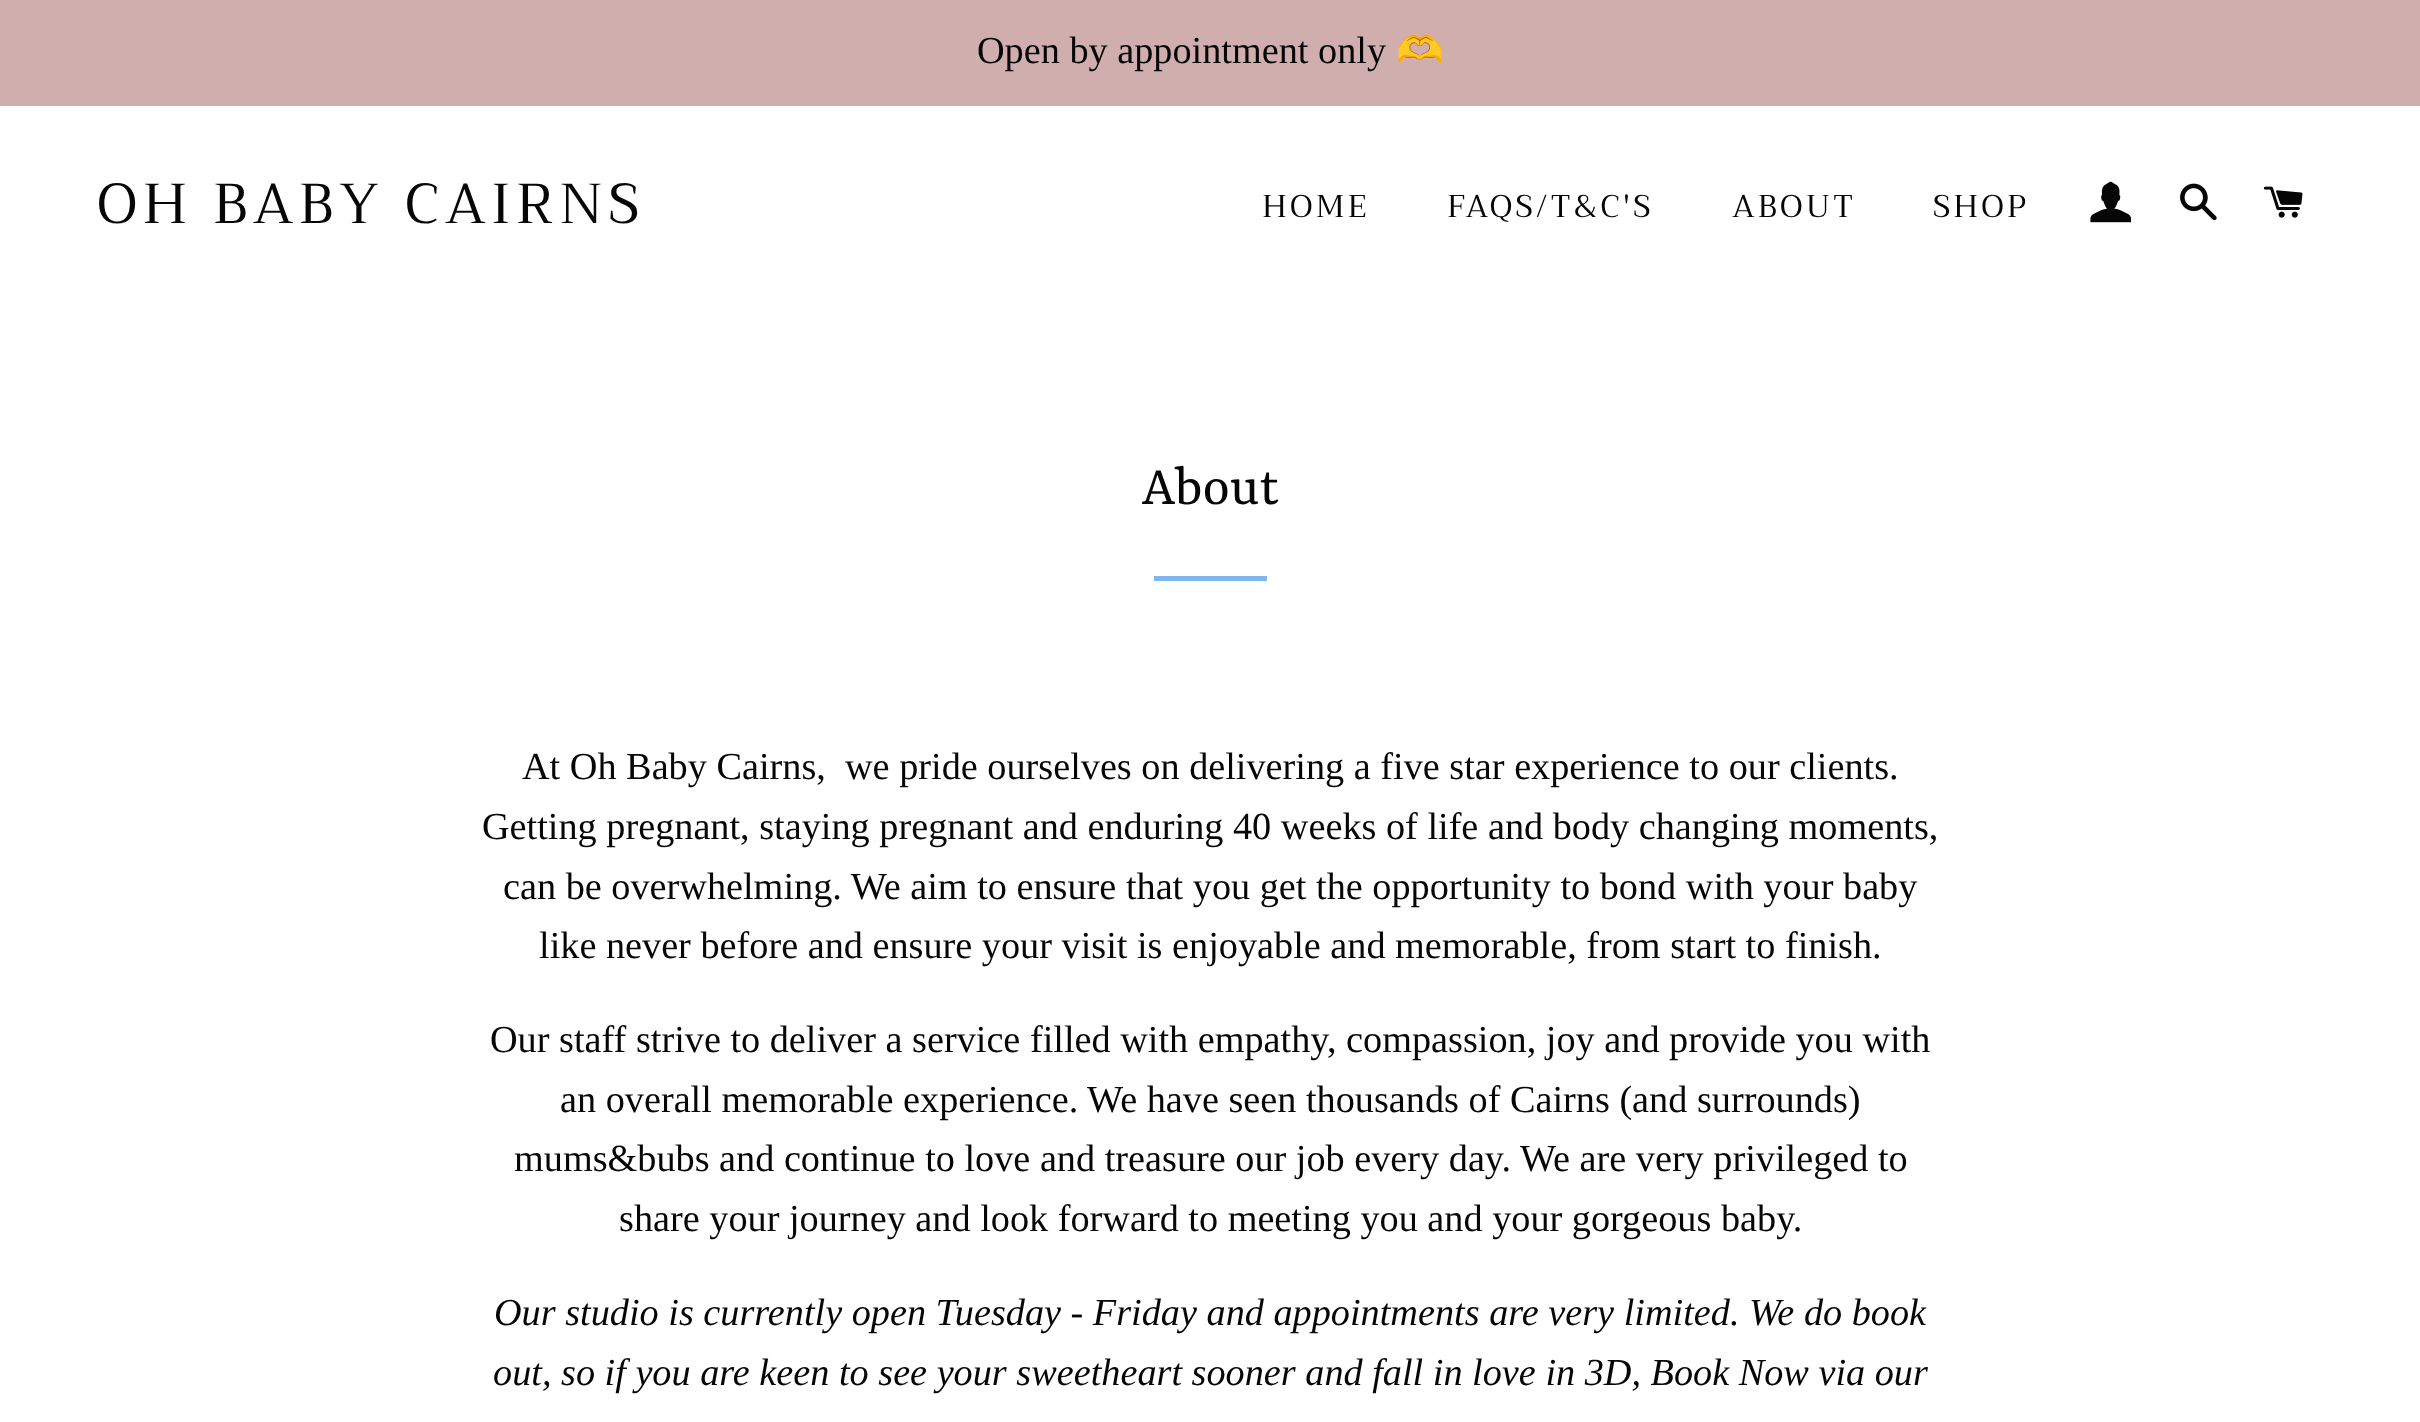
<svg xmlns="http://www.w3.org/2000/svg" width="2420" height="1422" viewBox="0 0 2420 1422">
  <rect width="100%" height="100%" fill="#fff"/>
  <path d="M0 0h2420v106H0z" fill="#d0aeae"/>
  <image x="2090" y="181" width="41" height="42" href="img/1.png"/>
  <image x="2180" y="183" width="37" height="38" href="img/2.png"/>
  <image x="2263" y="186" width="40" height="32" href="img/3.png"/>
  <path d="M1154 576h113v5H1154z" fill="#80b6ed"/>
  <text x="977" y="63" font-family="Liberation Serif" font-size="38.25" fill="#060606">Open by appointment only</text>
  <text x="1396" y="63" font-family="Noto Color Emoji" font-size="38.25" fill="#060606">🫶</text>
  <text x="97" y="223" font-family="Trirong" font-size="56.25" letter-spacing="5.6" fill="#060606">OH BABY CAIRNS</text>
  <g font-family="Trirong" font-size="31.5" letter-spacing="3.1" fill="#060606">
    <text x="1262" y="217">HOME</text>
    <text x="1447" y="217">FAQS/T&amp;C'S</text>
    <text x="1732" y="217">ABOUT</text>
    <text x="1933" y="217">SHOP</text>
  </g>
  <text x="1142" y="504" font-family="Rasa" font-size="58.5" fill="#060606">About</text>
  <g font-family="Liberation Serif" font-size="38.25" fill="#060606">
    <text x="522" y="779" xml:space="preserve">At Oh Baby Cairns,  we pride ourselves on delivering a five star experience to our clients.</text>
    <text x="482" y="839">Getting pregnant, staying pregnant and enduring 40 weeks of life and body changing moments,</text>
    <text x="503" y="899">can be overwhelming. We aim to ensure that you get the opportunity to bond with your baby</text>
    <text x="539" y="958">like never before and ensure your visit is enjoyable and memorable, from start to finish.</text>
    <text x="490" y="1052">Our staff strive to deliver a service filled with empathy, compassion, joy and provide you with</text>
    <text x="560" y="1112">an overall memorable experience. We have seen thousands of Cairns (and surrounds)</text>
    <text x="514" y="1171">mums&amp;bubs and continue to love and treasure our job every day. We are very privileged to</text>
    <text x="619" y="1231">share your journey and look forward to meeting you and your gorgeous baby.</text>
  </g>
  <g font-family="Liberation Serif" font-size="38.25" font-style="italic" fill="#060606">
    <text x="494" y="1325">Our studio is currently open Tuesday - Friday and appointments are very limited. We do book</text>
    <text x="493" y="1385">out, so if you are keen to see your sweetheart sooner and fall in love in 3D, Book Now via our</text>
  </g>
</svg>
